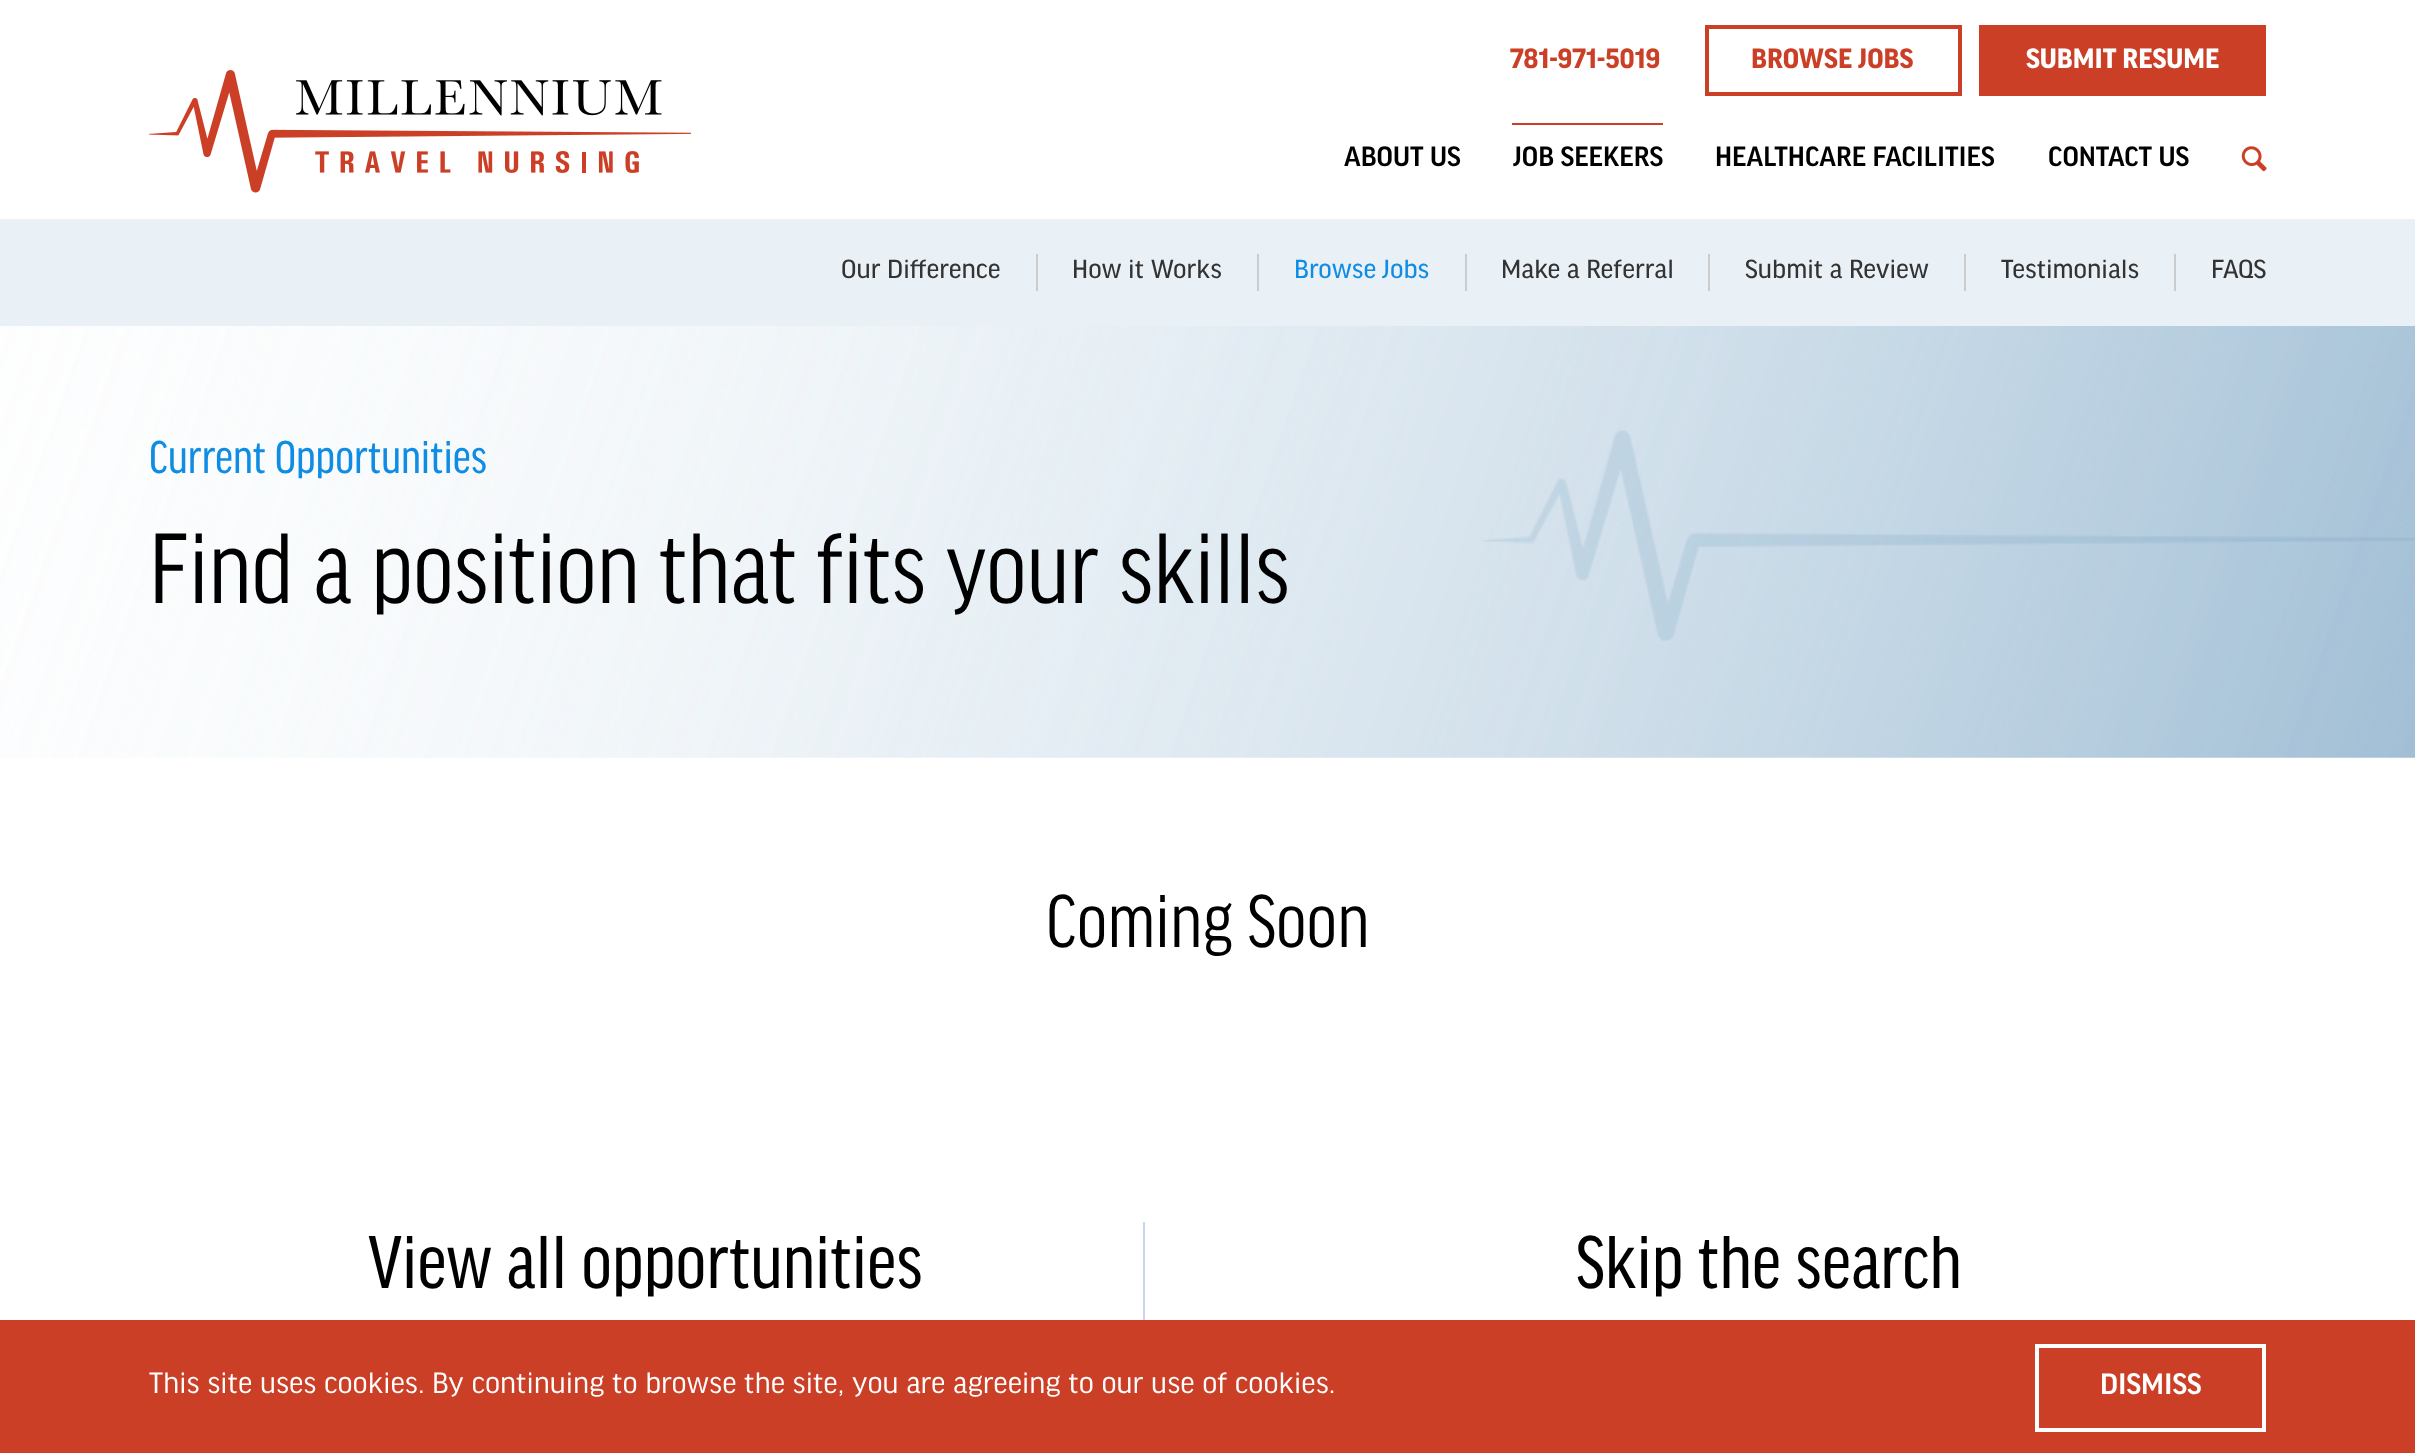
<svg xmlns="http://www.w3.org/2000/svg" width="2415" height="1453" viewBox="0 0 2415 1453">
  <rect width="100%" height="100%" fill="#fff"/>
  <image x="149" y="70" width="542" height="123" href="img/1.png"/>
  <path d="M1707 27h253v67H1707z" fill="none" stroke="#cb3f26" stroke-width="4"/>
  <path d="M1979 25h287v71H1979z" fill="#cb3f26"/>
  <path d="M1512 123h151v2H1512z" fill="#cb3f26"/>
  <image x="2241" y="146" width="26" height="26" href="img/2.png"/>
  <path d="M0 219h2415v107H0z" fill="#e9f0f6"/>
  <path d="M1036 254h2v37H1036z" fill="#ccc"/>
  <path d="M1257 254h2v37H1257z" fill="#ccc"/>
  <path d="M1465 254h2v37H1465z" fill="#ccc"/>
  <path d="M1708 254h2v37H1708z" fill="#ccc"/>
  <path d="M1964 254h2v37H1964z" fill="#ccc"/>
  <path d="M2174 254h2v37H2174z" fill="#ccc"/>
  <image x="0" y="326" width="2415" height="432" href="img/3.png"/>
  <image x="1482" y="430" width="933" height="211" href="img/4.png"/>
  <path d="M1143 1222h2v98H1143z" fill="#cad4e8"/>
  <path d="M0 1320h2415v133H0z" fill="#cb3f26"/>
  <path d="M2037 1346h227v84H2037z" fill="none" stroke="#fff" stroke-width="4"/>
  <g font-family="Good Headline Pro" font-size="29.75" font-weight="bold" fill="#cb3f26">
    <text x="1510" y="68">781-971-5019</text>
    <text x="1751" y="68">BROWSE JOBS</text>
  </g>
  <text x="2026" y="68" font-family="Good Headline Pro" font-size="29.75" font-weight="bold" fill="#fff">SUBMIT RESUME</text>
  <g font-family="'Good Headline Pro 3'" font-size="29.75" font-weight="500" fill="#000">
    <text x="1344" y="166">ABOUT US</text>
    <text x="1513" y="166">JOB SEEKERS</text>
    <text x="1715" y="166">HEALTHCARE FACILITIES</text>
    <text x="2048" y="166">CONTACT US</text>
  </g>
  <g font-family="'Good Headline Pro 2'" font-size="28" font-weight="500" fill="#333">
    <text x="841" y="278">Our Difference</text>
    <text x="1072" y="278">How it Works</text>
  </g>
  <text x="1294" y="278" font-family="'Good Headline Pro 2'" font-size="28" font-weight="500" fill="#0f8ce3">Browse Jobs</text>
  <g font-family="'Good Headline Pro 2'" font-size="28" font-weight="500" fill="#333">
    <text x="1501" y="278">Make a Referral</text>
    <text x="1745" y="278">Submit a Review</text>
    <text x="2001" y="278">Testimonials</text>
    <text x="2211" y="278">FAQS</text>
  </g>
  <text x="149" y="473" font-family="Good Headline Pro" font-size="49" font-weight="500" fill="#0f8ce3">Current Opportunities</text>
  <text x="149" y="603" font-family="Good Headline Pro" font-size="106.4" letter-spacing="-0.2" fill="#000">Find a position that fits your skills</text>
  <text x="1046" y="947" font-family="Good Headline Pro" font-size="79.75" fill="#000">Coming Soon</text>
  <g font-family="Good Headline Pro" font-size="79.75" font-weight="500" fill="#000">
    <text x="368" y="1288">View all opportunities</text>
    <text x="1576" y="1288">Skip the search</text>
  </g>
  <text x="149" y="1393" font-family="'Good Headline Pro 2'" font-size="31.5" fill="#fff">This site uses cookies. By continuing to browse the site, you are agreeing to our use of cookies.</text>
  <text x="2100" y="1394" font-family="'Good Headline Pro 3'" font-size="31.5" font-weight="500" fill="#fff">DISMISS</text>
</svg>
